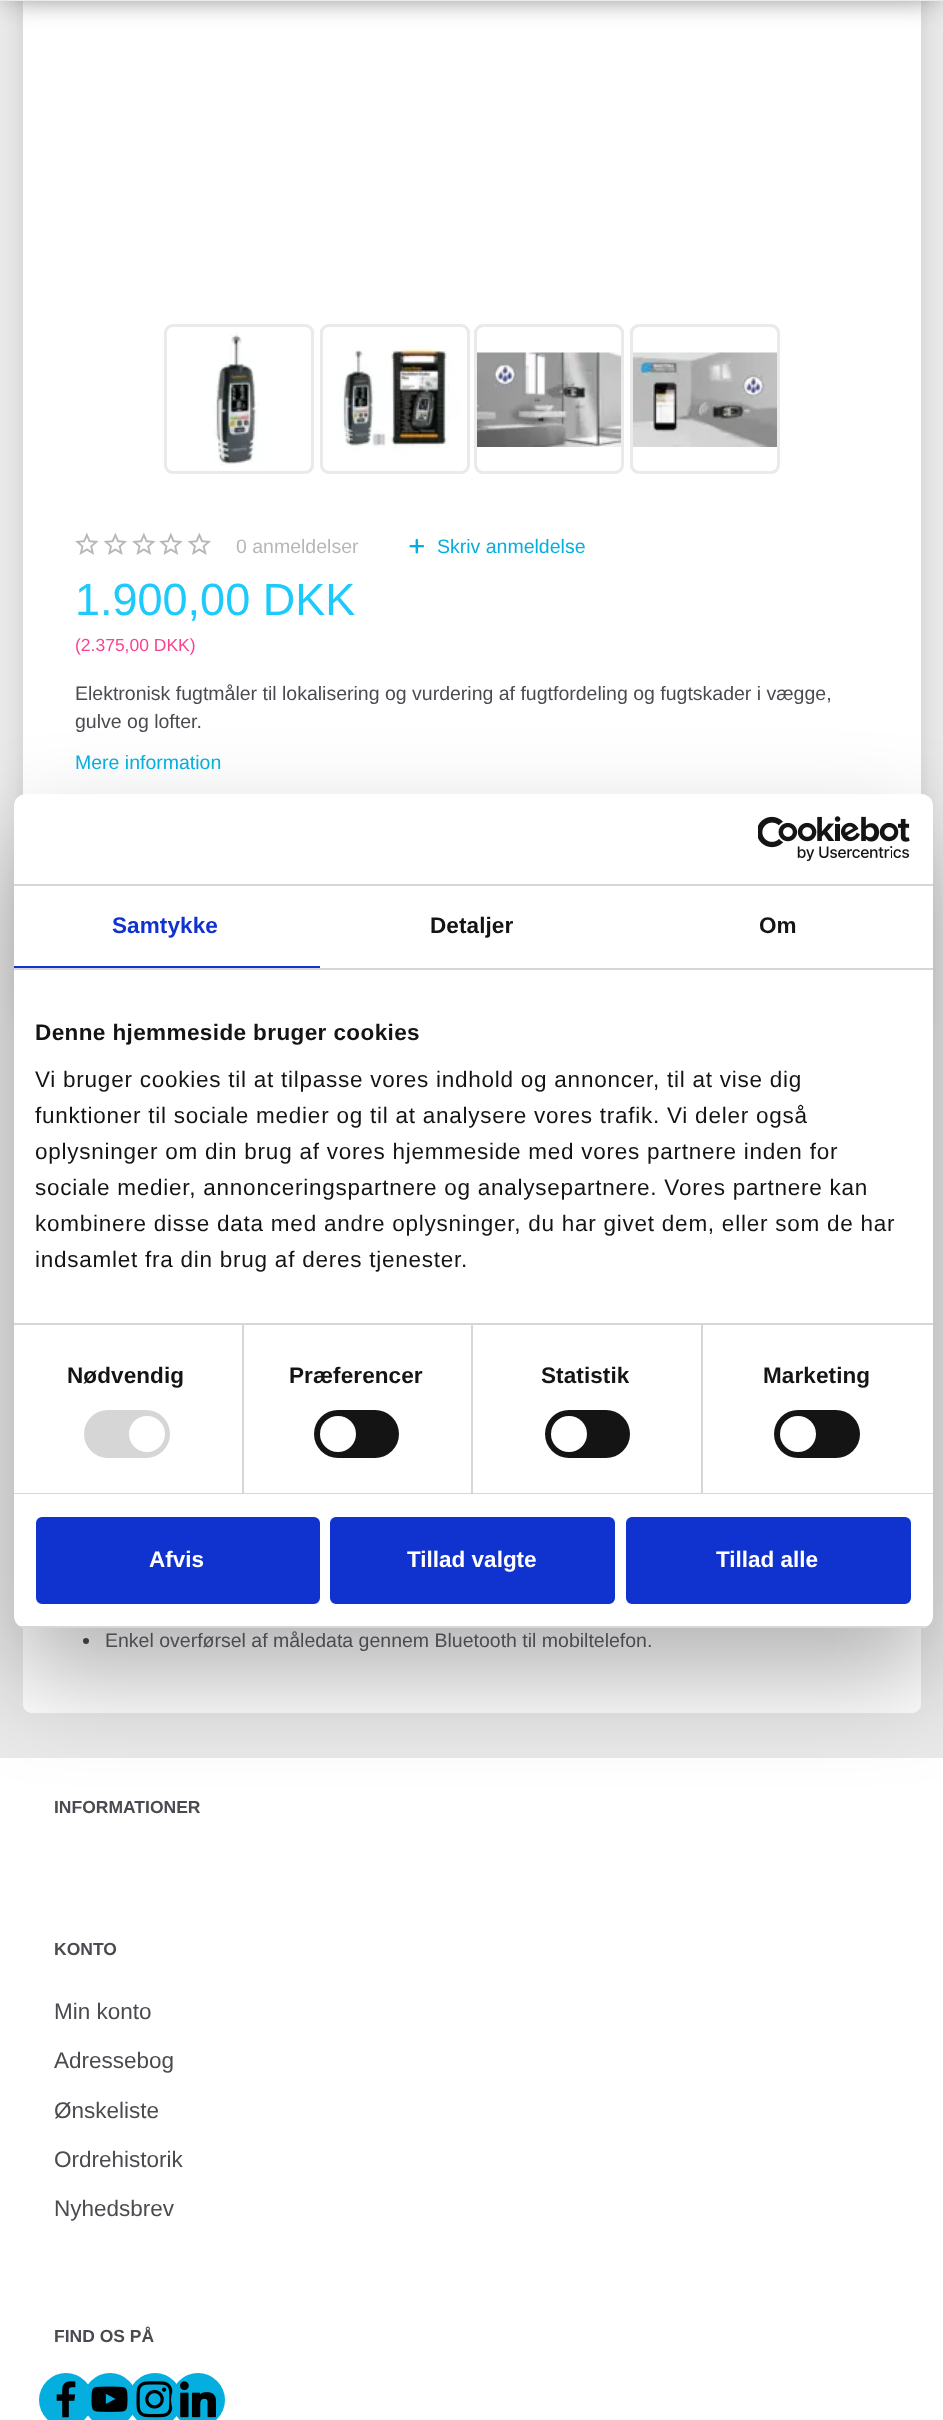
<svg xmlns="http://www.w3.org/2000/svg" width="943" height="2420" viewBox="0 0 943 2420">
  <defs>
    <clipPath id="clip1"><rect x="14" y="794" width="919" height="834" rx="12"/></clipPath>
  </defs>
  <rect width="100%" height="100%" fill="#eaeaea"/>
  <rect x="30" y="-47" width="884" height="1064" rx="1.5" fill="#b8b8b8" filter="blur(15px)"/>
  <path d="M23 1h898v794H23z" fill="#fff"/>
  <path d="M8 -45h928v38H8z" fill="#949494" filter="blur(15px)"/>
  <path d="M8 -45h928v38H8z" fill="#949494" filter="blur(15px)"/>
  <path d="M0 0h943v1H0z" fill="#eaeaea"/>
  <rect x="165.5" y="325.5" width="147" height="147" rx="7.5" fill="none" stroke="#eaeaea" stroke-width="3"/>
  <image x="166" y="327" width="145" height="144" href="img/1.png"/>
  <rect x="165.5" y="325.5" width="147" height="147" rx="7.5" fill="none" stroke="#eaeaea" stroke-width="3"/>
  <rect x="321.5" y="325.5" width="147" height="147" rx="7.5" fill="none" stroke="#eaeaea" stroke-width="3"/>
  <image x="322" y="327" width="145" height="144" href="img/2.png"/>
  <rect x="321.5" y="325.5" width="147" height="147" rx="7.5" fill="none" stroke="#eaeaea" stroke-width="3"/>
  <rect x="475.5" y="325.5" width="147" height="147" rx="7.5" fill="none" stroke="#eaeaea" stroke-width="3"/>
  <image x="477" y="352" width="144" height="95" href="img/3.png"/>
  <rect x="475.5" y="325.5" width="147" height="147" rx="7.5" fill="none" stroke="#eaeaea" stroke-width="3"/>
  <rect x="631.5" y="325.5" width="147" height="147" rx="7.5" fill="none" stroke="#eaeaea" stroke-width="3"/>
  <image x="633" y="352" width="144" height="95" href="img/4.png"/>
  <rect x="631.5" y="325.5" width="147" height="147" rx="7.5" fill="none" stroke="#eaeaea" stroke-width="3"/>
  <image x="75" y="532" width="24" height="23" href="img/5.png"/>
  <image x="103" y="532" width="24" height="23" href="img/6.png"/>
  <image x="132" y="532" width="24" height="23" href="img/5.png"/>
  <image x="159" y="532" width="24" height="23" href="img/5.png"/>
  <image x="187" y="532" width="24" height="23" href="img/6.png"/>
  <image x="409" y="538" width="16" height="16" href="img/7.png"/>
  <path d="M23 1160H921V1704C921 1709 917 1713 912 1713H32C27 1713 23 1709 23 1704Z" fill="#fff"/>
  <circle cx="86" cy="1641" r="3" fill="#4b4a50"/>
  <path d="M0 1758h943v662H0z" fill="#fff"/>
  <circle cx="66" cy="2400" r="27" fill="#04aede"/>
  <image x="56" y="2381" width="20" height="37" href="img/8.png"/>
  <circle cx="110" cy="2400" r="27" fill="#04aede"/>
  <image x="91" y="2386" width="37" height="26" href="img/9.png"/>
  <circle cx="155" cy="2400" r="27" fill="#04aede"/>
  <image x="136" y="2381" width="37" height="37" href="img/10.png"/>
  <circle cx="198" cy="2400" r="27" fill="#04aede"/>
  <image x="180" y="2381" width="36" height="37" href="img/11.png"/>
  <rect x="14" y="842" width="919" height="834" rx="12" fill="#0000004d" filter="blur(51px)"/>
  <rect x="14" y="794" width="919" height="834" rx="12" fill="#fff"/>
  <path d="M14 884h919v2H14z" fill="#d6d6d6"/>
  <image x="758" y="816" width="152" height="45" href="img/12.png"/>
  <path d="M14 968h919v2H14z" fill="#d6d6d6"/>
  <path d="M14 966h306v2H14z" fill="#1032cf"/>
  <path d="M14 1323h919v2H14z" fill="#d6d6d6"/>
  <path d="M14 1493h919v1H14z" fill="#d6d6d6"/>
  <path d="M242 1325h2v168H242z" fill="#d6d6d6"/>
  <rect x="84" y="1410" width="86" height="48" rx="24" fill="#d6d6d6"/>
  <circle cx="147" cy="1434" r="18" fill="#fff"/>
  <path d="M471 1325h2v168H471z" fill="#d6d6d6"/>
  <rect x="314" y="1410" width="85" height="48" rx="24" fill="#141414"/>
  <circle cx="338" cy="1434" r="18" fill="#fff"/>
  <path d="M701 1325h2v168H701z" fill="#d6d6d6"/>
  <rect x="545" y="1410" width="85" height="48" rx="24" fill="#141414"/>
  <circle cx="569" cy="1434" r="18" fill="#fff"/>
  <rect x="774" y="1410" width="86" height="48" rx="24" fill="#141414"/>
  <circle cx="798" cy="1434" r="18" fill="#fff"/>
  <g clip-path="url(#clip1)">
    <path d="M14 1626h919v2H14z" fill="#d6d6d6"/>
  </g>
  <rect x="37.5" y="1518.5" width="281" height="84" rx="4.5" fill="#1032cf" stroke="#1032cf" stroke-width="3"/>
  <rect x="331.5" y="1518.5" width="282" height="84" rx="4.5" fill="#1032cf" stroke="#1032cf" stroke-width="3"/>
  <rect x="627.5" y="1518.5" width="282" height="84" rx="4.5" fill="#1032cf" stroke="#1032cf" stroke-width="3"/>
  <text x="236" y="553" font-family="Liberation Sans" font-size="19.5" fill="#b7b7b9">0 anmeldelser</text>
  <text x="437" y="553" font-family="Liberation Sans" font-size="19.5" fill="#04aede">Skriv anmeldelse</text>
  <text x="75" y="615" font-family="Liberation Sans" font-size="45" fill="#1dcafb">1.900,00 DKK</text>
  <text x="75" y="651" font-family="Liberation Sans" font-size="17.5" fill="#f94390">(2.375,00 DKK)</text>
  <g font-family="Liberation Sans" font-size="19.5" fill="#4b4a50">
    <text x="75" y="700">Elektronisk fugtmåler til lokalisering og vurdering af fugtfordeling og fugtskader i vægge,</text>
    <text x="75" y="728">gulve og lofter.</text>
  </g>
  <text x="75" y="769" font-family="Liberation Sans" font-size="19.5" fill="#04aede">Mere information</text>
  <text x="105" y="1647" font-family="Liberation Sans" font-size="19.5" fill="#4b4a50">Enkel overførsel af måledata gennem Bluetooth til mobiltelefon.</text>
  <g font-family="Liberation Sans" font-size="17.5" font-weight="bold" fill="#4b4a50">
    <text x="54" y="1813">INFORMATIONER</text>
    <text x="54" y="1955">KONTO</text>
  </g>
  <g font-family="Liberation Sans" font-size="22.5" fill="#4b4a50">
    <text x="54" y="2019">Min konto</text>
    <text x="54" y="2068">Adressebog</text>
    <text x="54" y="2118">Ønskeliste</text>
    <text x="54" y="2167">Ordrehistorik</text>
    <text x="54" y="2216">Nyhedsbrev</text>
  </g>
  <text x="54" y="2342" font-family="Liberation Sans" font-size="17.5" font-weight="bold" fill="#4b4a50">FIND OS PÅ</text>
  <text x="112" y="933" font-family="Liberation Sans" font-size="22.5" font-weight="bold" letter-spacing="0.1" fill="#1032cf">Samtykke</text>
  <g font-family="Liberation Sans" font-size="22.5" font-weight="bold" letter-spacing="0.1" fill="#141414">
    <text x="430" y="933">Detaljer</text>
    <text x="759" y="933">Om</text>
  </g>
  <text x="35" y="1040" font-family="Liberation Sans" font-size="22.5" font-weight="bold" letter-spacing="0.4" fill="#141414">Denne hjemmeside bruger cookies</text>
  <g font-family="Liberation Sans" font-size="22.5" letter-spacing="0.75" fill="#141414">
    <text x="35" y="1087">Vi bruger cookies til at tilpasse vores indhold og annoncer, til at vise dig</text>
    <text x="35" y="1123">funktioner til sociale medier og til at analysere vores trafik. Vi deler også</text>
    <text x="35" y="1159">oplysninger om din brug af vores hjemmeside med vores partnere inden for</text>
    <text x="35" y="1195">sociale medier, annonceringspartnere og analysepartnere. Vores partnere kan</text>
    <text x="35" y="1231">kombinere disse data med andre oplysninger, du har givet dem, eller som de har</text>
    <text x="35" y="1267">indsamlet fra din brug af deres tjenester.</text>
  </g>
  <g font-family="Liberation Sans" font-size="22.5" font-weight="bold" letter-spacing="0.1" fill="#141414">
    <text x="67" y="1383">Nødvendig</text>
    <text x="289" y="1383">Præferencer</text>
    <text x="541" y="1383">Statistik</text>
    <text x="763" y="1383">Marketing</text>
  </g>
  <g font-family="Liberation Sans" font-size="22.5" font-weight="bold" fill="#fff">
    <text x="149" y="1567">Afvis</text>
    <text x="407" y="1567">Tillad valgte</text>
    <text x="716" y="1567">Tillad alle</text>
  </g>
</svg>
